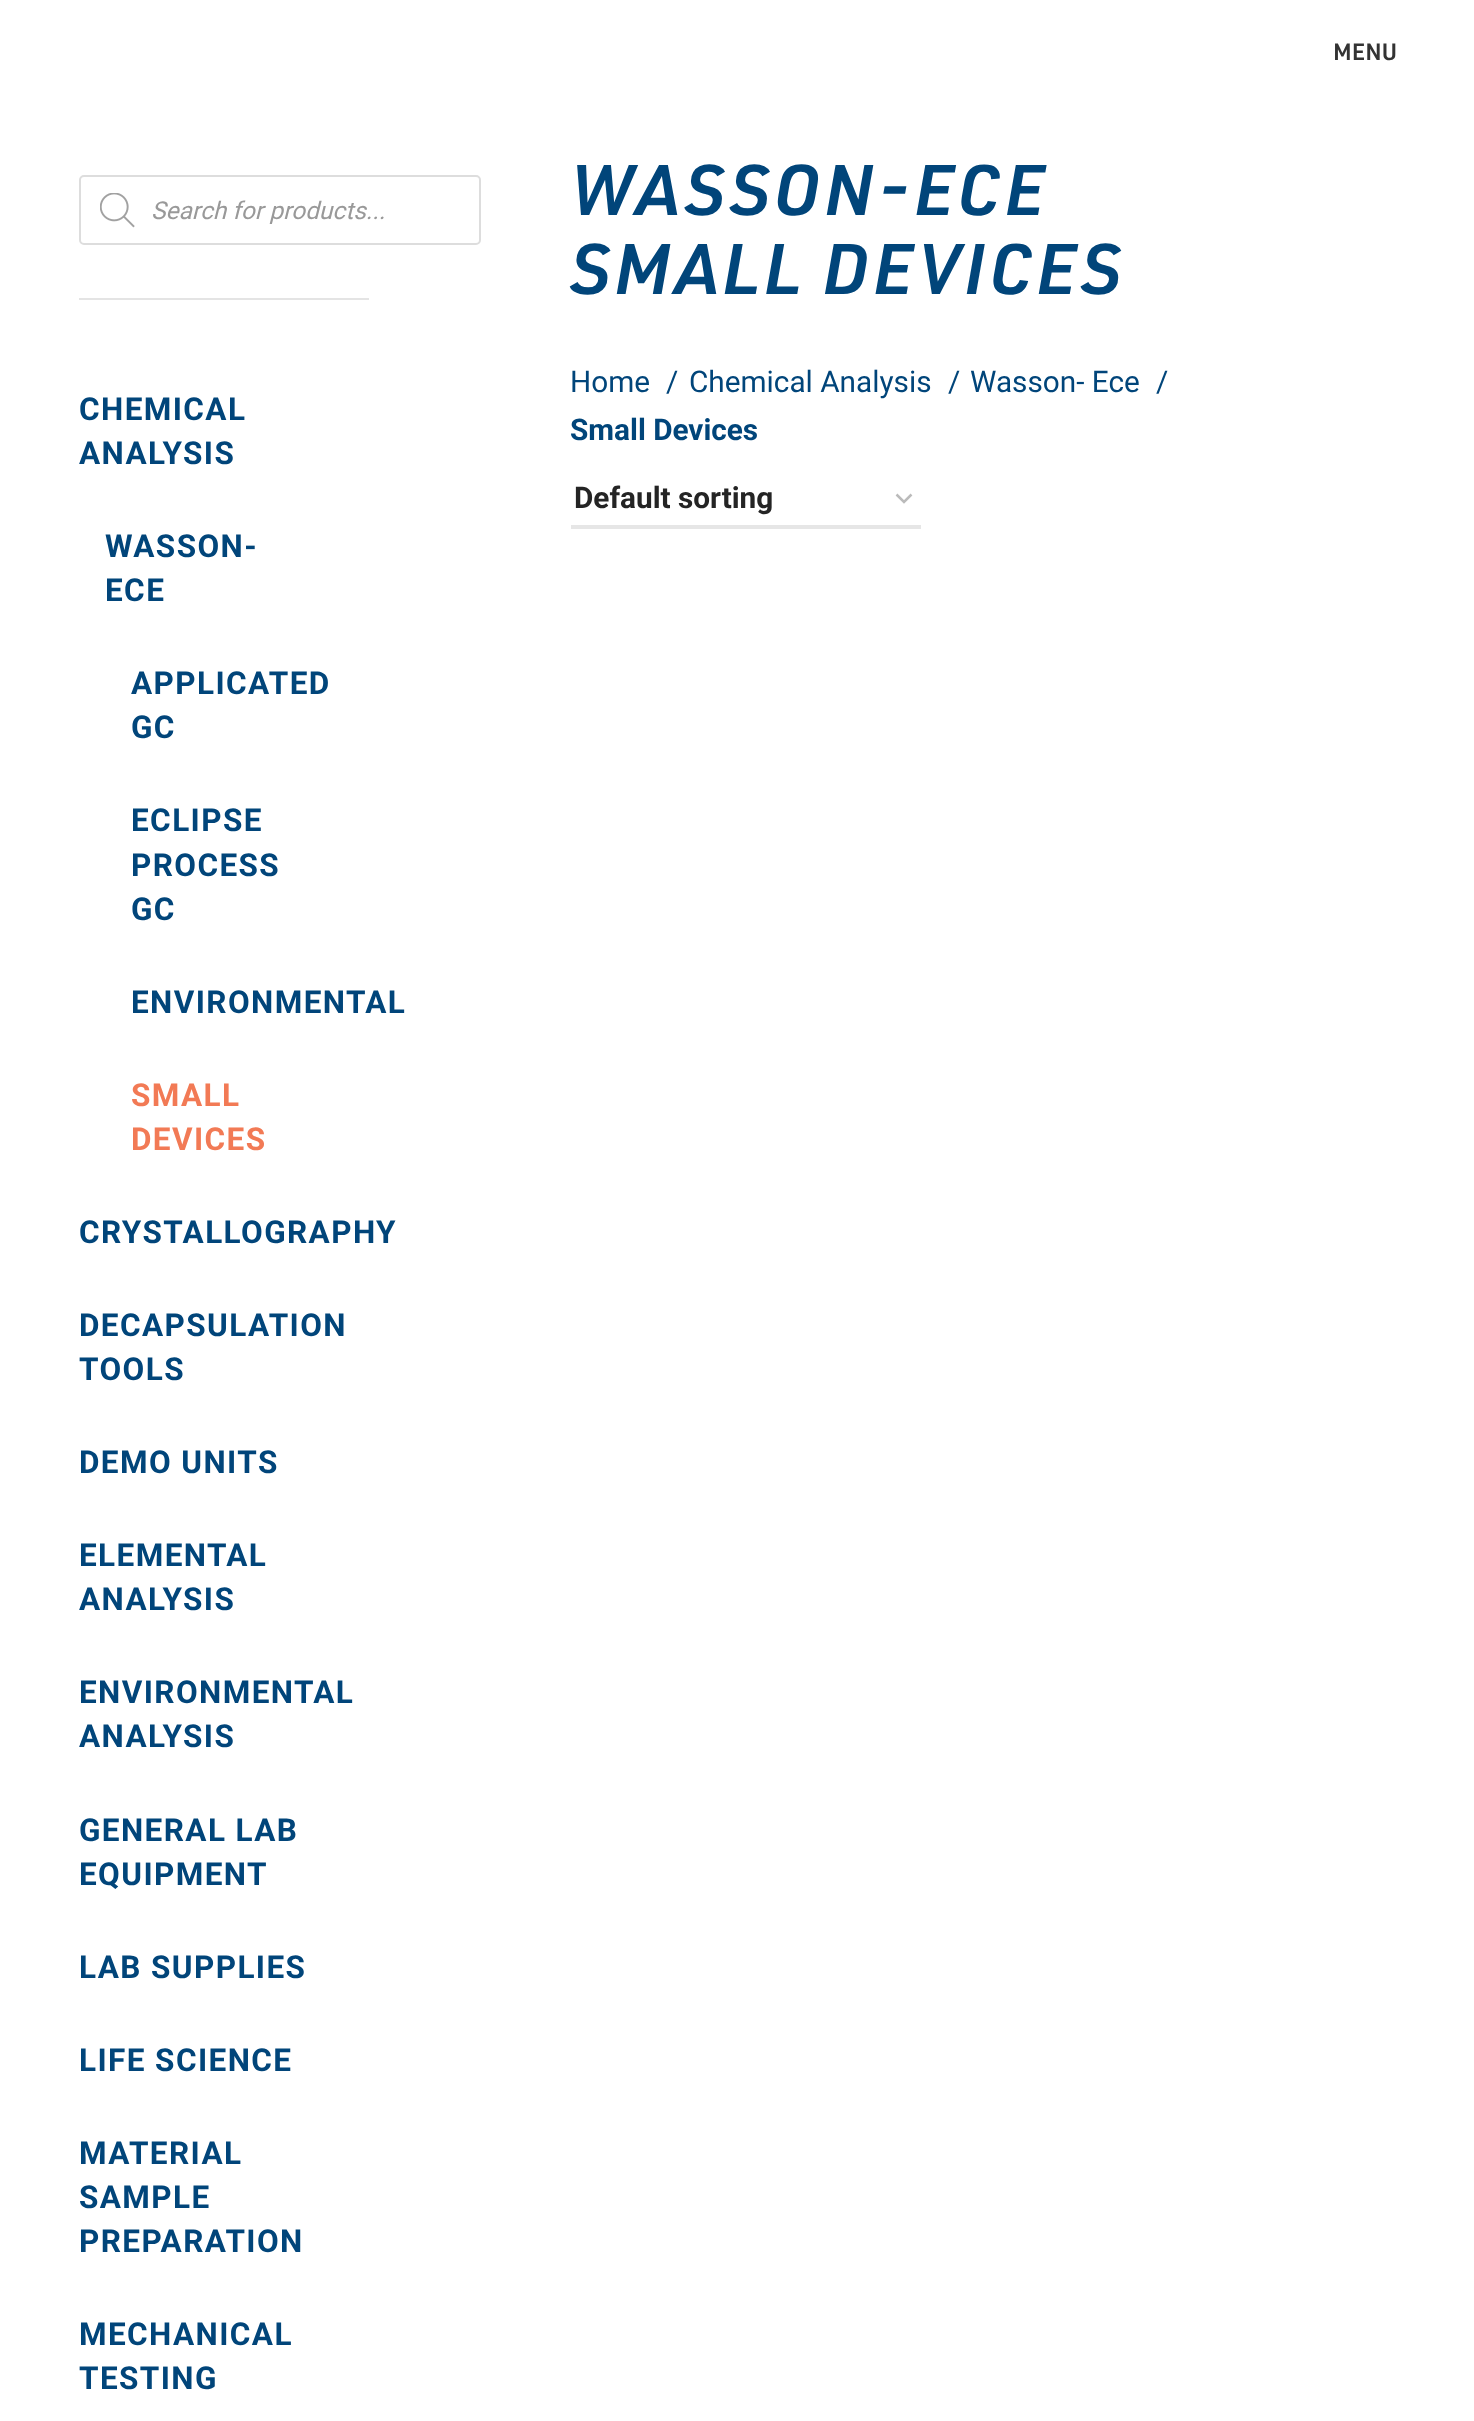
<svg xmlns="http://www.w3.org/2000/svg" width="1474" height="2421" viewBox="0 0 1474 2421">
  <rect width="100%" height="100%" fill="#fff"/>
  <path d="M79 298h290v2H79z" fill="#e4e4e4"/>
  <rect x="80" y="176" width="400" height="68" rx="4" fill="none" stroke="#ddd" stroke-width="2"/>
  <image x="100" y="193" width="35" height="35" href="img/1.png"/>
  <path d="M896.5 494.5L904 502L911.5 494.5" fill="none" stroke="#bbb" stroke-width="2.5"/>
  <path d="M571 525h350v4H571z" fill="#e6e6e6"/>
  <text x="1333" y="60" font-family="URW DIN" font-size="23" font-weight="600" fill="#333">MENU</text>
  <text x="151" y="219" font-family="Roboto" font-size="24.5" font-style="italic" fill="#999">Search for products...</text>
  <g font-family="Roboto" font-size="31.5" font-weight="bold" letter-spacing="1.4" fill="#01457a">
    <text x="79" y="420">CHEMICAL</text>
    <text x="79" y="464">ANALYSIS</text>
    <text x="105" y="557">WASSON-</text>
    <text x="105" y="601">ECE</text>
    <text x="131" y="694">APPLICATED</text>
    <text x="131" y="738">GC</text>
    <text x="131" y="831">ECLIPSE</text>
    <text x="131" y="876">PROCESS</text>
    <text x="131" y="920">GC</text>
    <text x="131" y="1013">ENVIRONMENTAL</text>
  </g>
  <g font-family="Roboto" font-size="31.5" font-weight="bold" letter-spacing="1.4" fill="#f27a55">
    <text x="131" y="1106">SMALL</text>
    <text x="131" y="1150">DEVICES</text>
  </g>
  <g font-family="Roboto" font-size="31.5" font-weight="bold" letter-spacing="1.4" fill="#01457a">
    <text x="79" y="1243">CRYSTALLOGRAPHY</text>
    <text x="79" y="1336">DECAPSULATION</text>
    <text x="79" y="1380">TOOLS</text>
    <text x="79" y="1473">DEMO UNITS</text>
    <text x="79" y="1566">ELEMENTAL</text>
    <text x="79" y="1610">ANALYSIS</text>
    <text x="79" y="1703">ENVIRONMENTAL</text>
    <text x="79" y="1747">ANALYSIS</text>
    <text x="79" y="1841">GENERAL LAB</text>
    <text x="79" y="1885">EQUIPMENT</text>
    <text x="79" y="1978">LAB SUPPLIES</text>
    <text x="79" y="2071">LIFE SCIENCE</text>
    <text x="79" y="2164">MATERIAL</text>
    <text x="79" y="2208">SAMPLE</text>
    <text x="79" y="2252">PREPARATION</text>
    <text x="79" y="2345">MECHANICAL</text>
    <text x="79" y="2389">TESTING</text>
  </g>
  <g font-family="URW DIN" font-size="70" font-weight="600" font-style="italic" letter-spacing="3.5" fill="#01457a">
    <text x="570" y="215">WASSON-ECE</text>
    <text x="570" y="294">SMALL DEVICES</text>
  </g>
  <g font-family="Roboto" font-size="29.75" fill="#01457a">
    <text x="570" y="392">Home</text>
    <text x="666" y="392">/</text>
    <text x="689" y="392">Chemical Analysis</text>
    <text x="948" y="392">/</text>
    <text x="970" y="392">Wasson- Ece</text>
    <text x="1156" y="392">/</text>
  </g>
  <text x="570" y="440" font-family="Roboto" font-size="29.75" font-weight="bold" fill="#01457a">Small Devices</text>
  <text x="574" y="508" font-family="Roboto" font-size="29.75" font-weight="bold" fill="#242424">Default sorting</text>
</svg>
